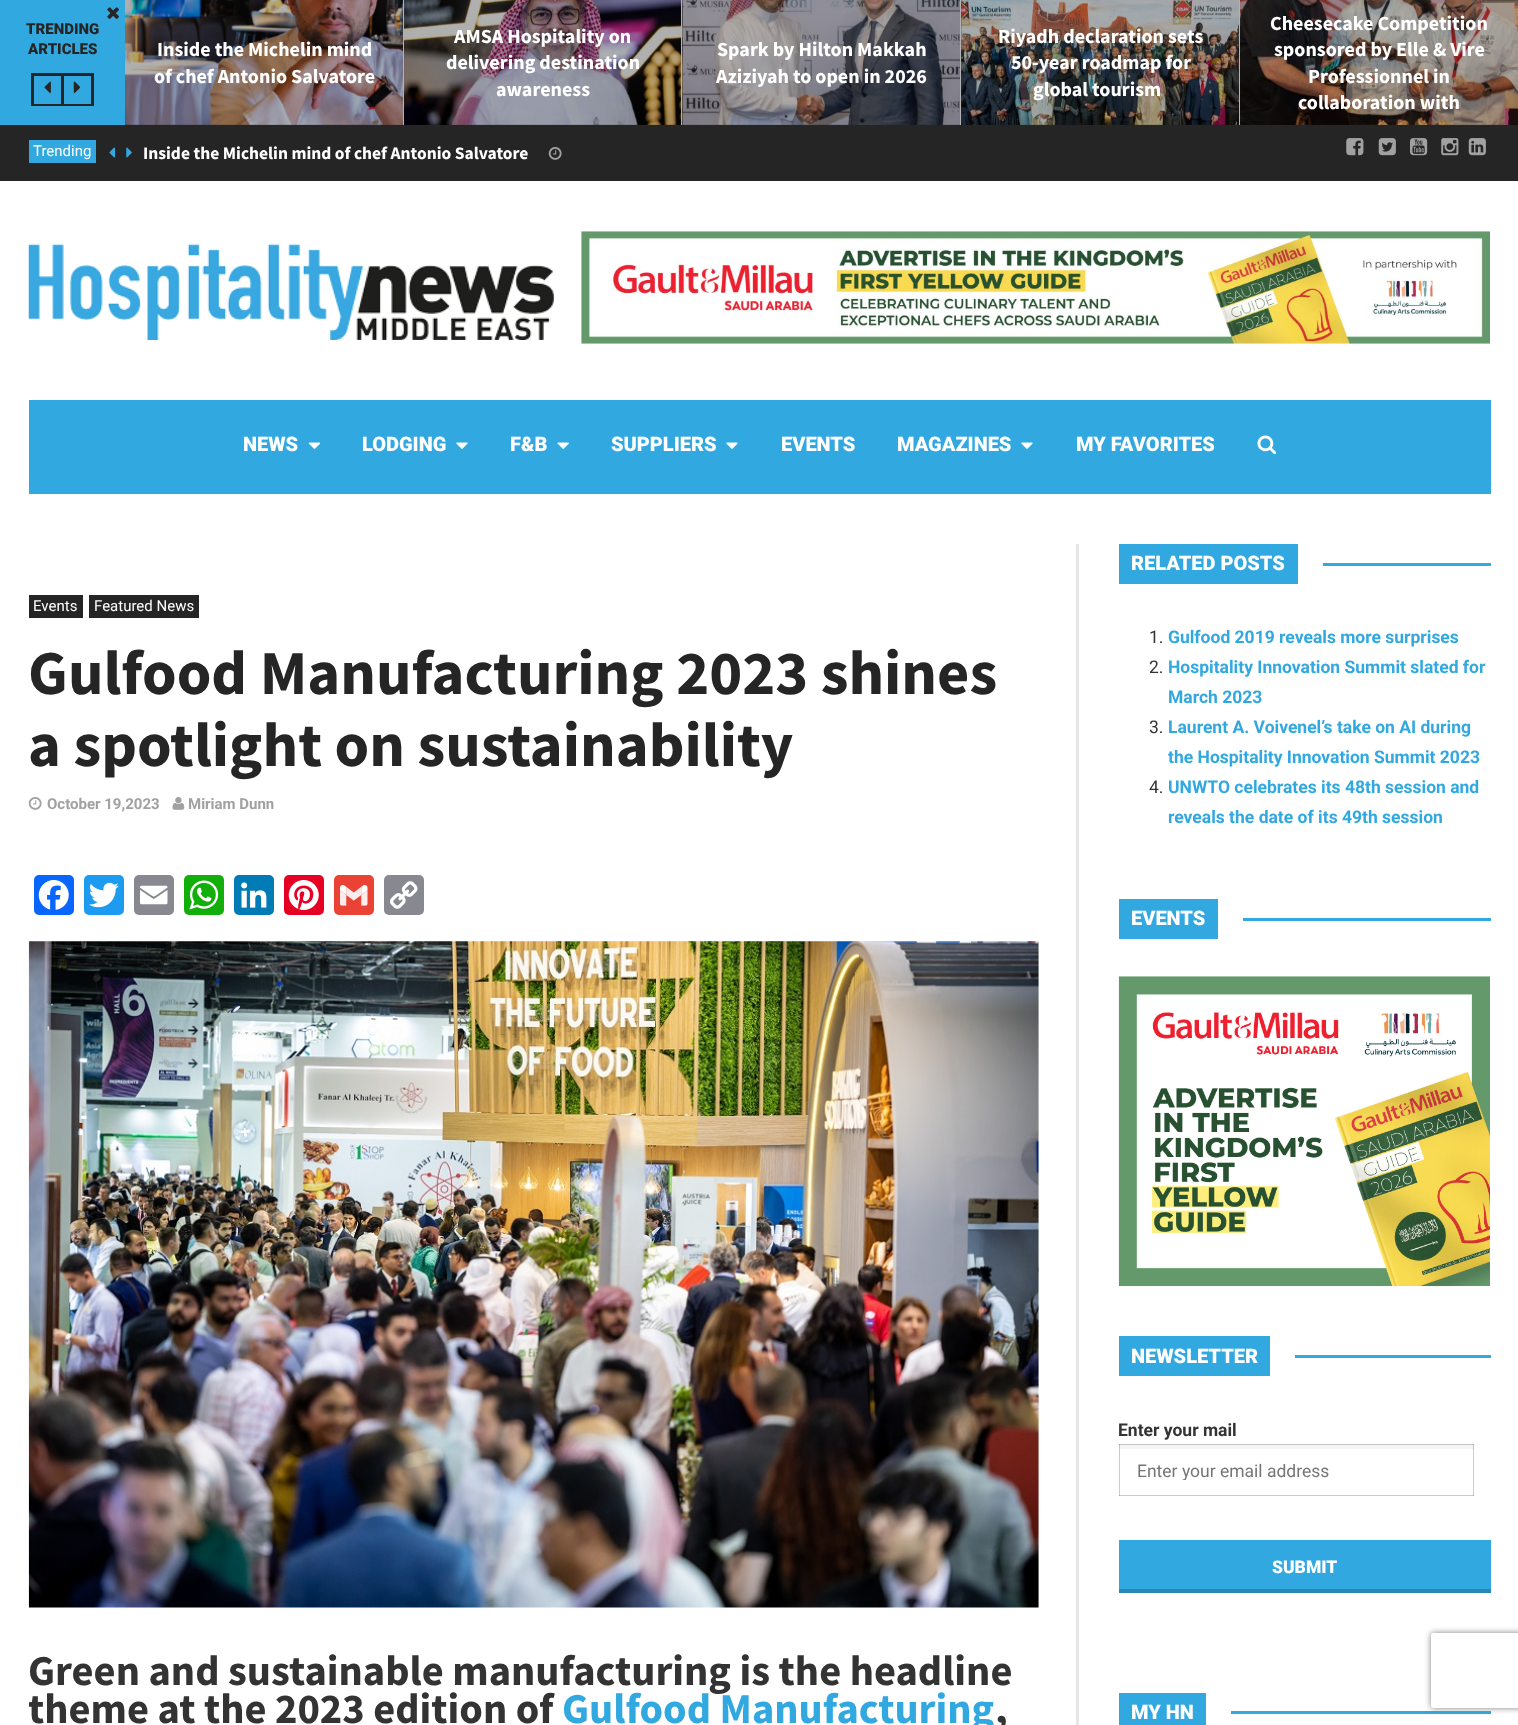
<svg xmlns="http://www.w3.org/2000/svg" width="1518" height="1725" viewBox="0 0 1518 1725">
  <defs>
    <clipPath id="clip1"><path d="M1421 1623H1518V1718H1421ZM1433.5 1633H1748.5C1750 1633 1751 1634 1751 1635.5V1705.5C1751 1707 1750 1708 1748.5 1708H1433.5C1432 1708 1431 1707 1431 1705.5V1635.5C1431 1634 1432 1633 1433.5 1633Z" clip-rule="evenodd"/></clipPath>
    <clipPath id="clip2"><path d="M29 855h1010v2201H29z"/></clipPath>
    <clipPath id="clip3"><path d="M1138 1460h317v20H1138z"/></clipPath>
  </defs>
  <rect width="100%" height="100%" fill="#fff"/>
  <path d="M1119 1495h355v1H1119z" fill="#ccc"/>
  <path d="M1119 1444h1v52H1119z" fill="#ccc"/>
  <path d="M1119 1495h1v1H1119z" fill="#a3a3a3"/>
  <path d="M1473 1444h1v52H1473z" fill="#ccc"/>
  <path d="M1473 1495h1v1H1473z" fill="#a3a3a3"/>
  <path d="M125 0h1393v125H125z" fill="#252525"/>
  <path d="M0 0h125v125H0z" fill="#31a8e0"/>
  <image x="107" y="7" width="12" height="12" href="img/1.png"/>
  <path d="M61 73h3v33H61z" fill="#252525"/>
  <path d="M31 73h3v33H31z" fill="#252525"/>
  <path d="M31 104h33v2H31z" fill="#252525"/>
  <path d="M31 73h33v3H31z" fill="#252525"/>
  <image x="44" y="81" width="7" height="12" href="img/2.png"/>
  <path d="M91 73h3v33H91z" fill="#252525"/>
  <path d="M61 104h33v2H61z" fill="#252525"/>
  <path d="M61 73h33v3H61z" fill="#252525"/>
  <image x="73" y="81" width="8" height="12" href="img/3.png"/>
  <image x="125" y="0" width="278" height="125" href="img/4.png"/>
  <path d="M403 0h1v125H403z" fill="#fff"/>
  <path d="M125 0h279v125H125z" fill="#0000004d"/>
  <image x="404" y="0" width="279" height="125" href="img/5.png"/>
  <path d="M681 0h1v125H681z" fill="#fff"/>
  <image x="682" y="0" width="280" height="125" href="img/6.png"/>
  <path d="M404 0h279v125H404z" fill="#0000004d"/>
  <path d="M960 0h1v125H960z" fill="#b3b3b3"/>
  <image x="961" y="0" width="278" height="125" href="img/7.png"/>
  <path d="M1239 0h1v125H1239z" fill="#fff"/>
  <path d="M961 0h279v125H961z" fill="#0000004d"/>
  <image x="1240" y="0" width="278" height="125" href="img/8.png"/>
  <path d="M0 125h1518v56H0z" fill="#252525"/>
  <path d="M29 140h67v23H29z" fill="#31a8e0"/>
  <image x="109" y="147" width="6" height="11" href="img/9.png"/>
  <image x="126" y="147" width="6" height="11" href="img/10.png"/>
  <image x="548" y="147" width="14" height="13" href="img/11.png"/>
  <image x="1346" y="138" width="18" height="18" href="img/12.png"/>
  <image x="1378" y="138" width="18" height="18" href="img/13.png"/>
  <image x="1410" y="138" width="18" height="18" href="img/14.png"/>
  <image x="1441" y="138" width="18" height="18" href="img/15.png"/>
  <image x="1468" y="138" width="18" height="18" href="img/16.png"/>
  <image x="28" y="243" width="526" height="97" href="img/17.png"/>
  <image x="581" y="231" width="909" height="113" href="img/18.png"/>
  <path d="M29 400h1462v94H29z" fill="#31a8e0"/>
  <image x="308" y="442" width="13" height="7" href="img/19.png"/>
  <image x="456" y="442" width="12" height="7" href="img/20.png"/>
  <image x="557" y="442" width="12" height="7" href="img/21.png"/>
  <image x="726" y="442" width="12" height="7" href="img/20.png"/>
  <image x="1021" y="442" width="12" height="7" href="img/20.png"/>
  <image x="1257" y="435" width="20" height="20" href="img/22.png"/>
  <path d="M29 595h54v23H29z" fill="#252525"/>
  <path d="M89 595h110v23H89z" fill="#252525"/>
  <image x="28" y="797" width="14" height="13" href="img/23.png"/>
  <image x="172" y="797" width="13" height="13" href="img/24.png"/>
  <rect x="34" y="875" width="40" height="40" rx="5" fill="#0866ff"/>
  <image x="38" y="880" width="31" height="30" href="img/25.png"/>
  <rect x="84" y="875" width="40" height="40" rx="5" fill="#1d9bf0"/>
  <image x="89" y="882" width="30" height="26" href="img/26.png"/>
  <rect x="134" y="875" width="40" height="40" rx="5" fill="#888990"/>
  <image x="140" y="885" width="28" height="20" href="img/27.png"/>
  <rect x="184" y="875" width="40" height="40" rx="5" fill="#12af0a"/>
  <image x="189" y="880" width="30" height="30" href="img/28.png"/>
  <rect x="234" y="875" width="40" height="40" rx="5" fill="#007bb5"/>
  <image x="241" y="882" width="26" height="26" href="img/29.png"/>
  <rect x="284" y="875" width="40" height="40" rx="5" fill="#e60023"/>
  <image x="288" y="880" width="31" height="30" href="img/30.png"/>
  <rect x="334" y="875" width="40" height="40" rx="5" fill="#ea4335"/>
  <image x="340" y="885" width="28" height="21" href="img/31.png"/>
  <rect x="384" y="875" width="40" height="40" rx="5" fill="#888990"/>
  <image x="390" y="881" width="28" height="28" href="img/32.png"/>
  <image x="28" y="941" width="1011" height="667" href="img/33.png"/>
  <path d="M1076 544h3v1181H1076z" fill="#e6e6e6"/>
  <path d="M1119 544h179v40H1119z" fill="#31a8e0"/>
  <path d="M1323 563h168v3H1323z" fill="#31a8e0"/>
  <path d="M1119 899h99v40H1119z" fill="#31a8e0"/>
  <path d="M1243 918h248v3H1243z" fill="#31a8e0"/>
  <image x="1118" y="976" width="372" height="311" href="img/34.png"/>
  <path d="M1119 1336h151v40H1119z" fill="#31a8e0"/>
  <path d="M1295 1355h196v3H1295z" fill="#31a8e0"/>
  <path d="M1119 1445h355v4H1119z" fill="#f5f5f5"/>
  <path d="M1119 1444h355v1H1119z" fill="#c4c4c4"/>
  <path d="M1119 1444h1v5H1119z" fill="#c4c4c4"/>
  <path d="M1119 1444h1v1H1119z" fill="#9d9d9d"/>
  <path d="M1473 1444h1v5H1473z" fill="#c4c4c4"/>
  <path d="M1473 1444h1v1H1473z" fill="#9d9d9d"/>
  <path d="M1119 1540h372v49H1119z" fill="#31a8e0"/>
  <path d="M1119 1589h372v4H1119z" fill="#2786b3"/>
  <path d="M1119 1693h87v32H1119z" fill="#31a8e0"/>
  <path d="M1231 1711h260v3H1231z" fill="#31a8e0"/>
  <g clip-path="url(#clip1)">
    <rect x="1431" y="1633" width="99" height="75" rx="2.5" fill="#808080" filter="blur(3px)"/>
  </g>
  <g font-family="Roboto" font-size="15" font-weight="900" fill="#252525">
    <text x="26" y="34">TRENDING</text>
    <text x="28" y="54">ARTICLES</text>
  </g>
  <g font-family="Source Sans Pro" font-size="20" font-weight="bold" fill="#fff">
    <text x="157" y="56">Inside the Michelin mind</text>
    <text x="154" y="83">of chef Antonio Salvatore</text>
    <text x="454" y="43">AMSA Hospitality on</text>
    <text x="446" y="69">delivering destination</text>
    <text x="496" y="96">awareness</text>
    <text x="717" y="56">Spark by Hilton Makkah</text>
    <text x="716" y="83">Aziziyah to open in 2026</text>
    <text x="998" y="43">Riyadh declaration sets</text>
    <text x="1011" y="69">50-year roadmap for</text>
    <text x="1033" y="96">global tourism</text>
    <text x="1270" y="30">Cheesecake Competition</text>
    <text x="1274" y="56">sponsored by Elle &amp; Vire</text>
    <text x="1308" y="83">Professionnel in</text>
    <text x="1298" y="109">collaboration with</text>
  </g>
  <text x="33" y="156" font-family="Roboto" font-size="15" fill="#fff">Trending</text>
  <text x="143" y="159" font-family="Source Sans Pro" font-size="17.5" font-weight="bold" fill="#fff">Inside the Michelin mind of chef Antonio Salvatore</text>
  <g font-family="Roboto" font-size="20" font-weight="900" fill="#fff">
    <text x="243" y="451">NEWS</text>
    <text x="362" y="451">LODGING</text>
    <text x="510" y="451">F&amp;B</text>
    <text x="611" y="451">SUPPLIERS</text>
    <text x="781" y="451">EVENTS</text>
    <text x="897" y="451">MAGAZINES</text>
    <text x="1076" y="451">MY FAVORITES</text>
  </g>
  <g font-family="Roboto" font-size="15" fill="#fff">
    <text x="33" y="611">Events</text>
    <text x="94" y="611">Featured News</text>
  </g>
  <g font-family="Source Sans Pro" font-size="62.5" font-weight="bold" fill="#252525">
    <text x="28" y="694">Gulfood Manufacturing 2023 shines</text>
    <text x="28" y="766">a spotlight on sustainability</text>
  </g>
  <g font-family="Roboto" font-size="15" font-weight="bold" fill="#a1a1a1">
    <text x="47" y="809">October 19,2023</text>
    <text x="188" y="809">Miriam Dunn</text>
  </g>
  <text x="28" y="1685" font-family="Source Sans Pro" font-size="42.5" font-weight="bold" fill="#333">Green and sustainable manufacturing is the headline</text>
  <g clip-path="url(#clip2)">
    <text x="28" y="1723" font-family="Source Sans Pro" font-size="42.5" font-weight="bold" fill="#333">theme at the 2023 edition of</text>
  </g>
  <text x="562" y="1723" font-family="Source Sans Pro" font-size="42.5" font-weight="bold" fill="#31a8e0">Gulfood Manufacturing</text>
  <text x="995" y="1723" font-family="Source Sans Pro" font-size="42.5" font-weight="bold" fill="#333">,</text>
  <text x="1131" y="570" font-family="Roboto" font-size="20" font-weight="900" fill="#fff">RELATED POSTS</text>
  <text x="1149" y="643" font-family="Roboto" font-size="17.5" fill="#333">1.</text>
  <text x="1168" y="643" font-family="Roboto" font-size="17.5" font-weight="bold" fill="#31a8e0">Gulfood 2019 reveals more surprises</text>
  <text x="1149" y="673" font-family="Roboto" font-size="17.5" fill="#333">2.</text>
  <g font-family="Roboto" font-size="17.5" font-weight="bold" fill="#31a8e0">
    <text x="1168" y="673">Hospitality Innovation Summit slated for</text>
    <text x="1168" y="703">March 2023</text>
  </g>
  <text x="1149" y="733" font-family="Roboto" font-size="17.5" fill="#333">3.</text>
  <g font-family="Roboto" font-size="17.5" font-weight="bold" fill="#31a8e0">
    <text x="1168" y="733">Laurent A. Voivenel’s take on AI during</text>
    <text x="1168" y="763">the Hospitality Innovation Summit 2023</text>
  </g>
  <text x="1149" y="793" font-family="Roboto" font-size="17.5" fill="#333">4.</text>
  <g font-family="Roboto" font-size="17.5" font-weight="bold" fill="#31a8e0">
    <text x="1168" y="793">UNWTO celebrates its 48th session and</text>
    <text x="1168" y="823">reveals the date of its 49th session</text>
  </g>
  <g font-family="Roboto" font-size="20" font-weight="900" fill="#fff">
    <text x="1131" y="925">EVENTS</text>
    <text x="1131" y="1363">NEWSLETTER</text>
  </g>
  <text x="1118" y="1436" font-family="Roboto" font-size="17.5" font-weight="bold" fill="#333">Enter your mail</text>
  <g clip-path="url(#clip3)">
    <text x="1137" y="1477" font-family="Roboto" font-size="17.5" fill="#757575">Enter your email address</text>
  </g>
  <text x="1272" y="1573" font-family="Roboto" font-size="17.5" font-weight="900" fill="#fff">SUBMIT</text>
  <text x="1131" y="1719" font-family="Roboto" font-size="20" font-weight="900" fill="#fff">MY HN</text>
</svg>
